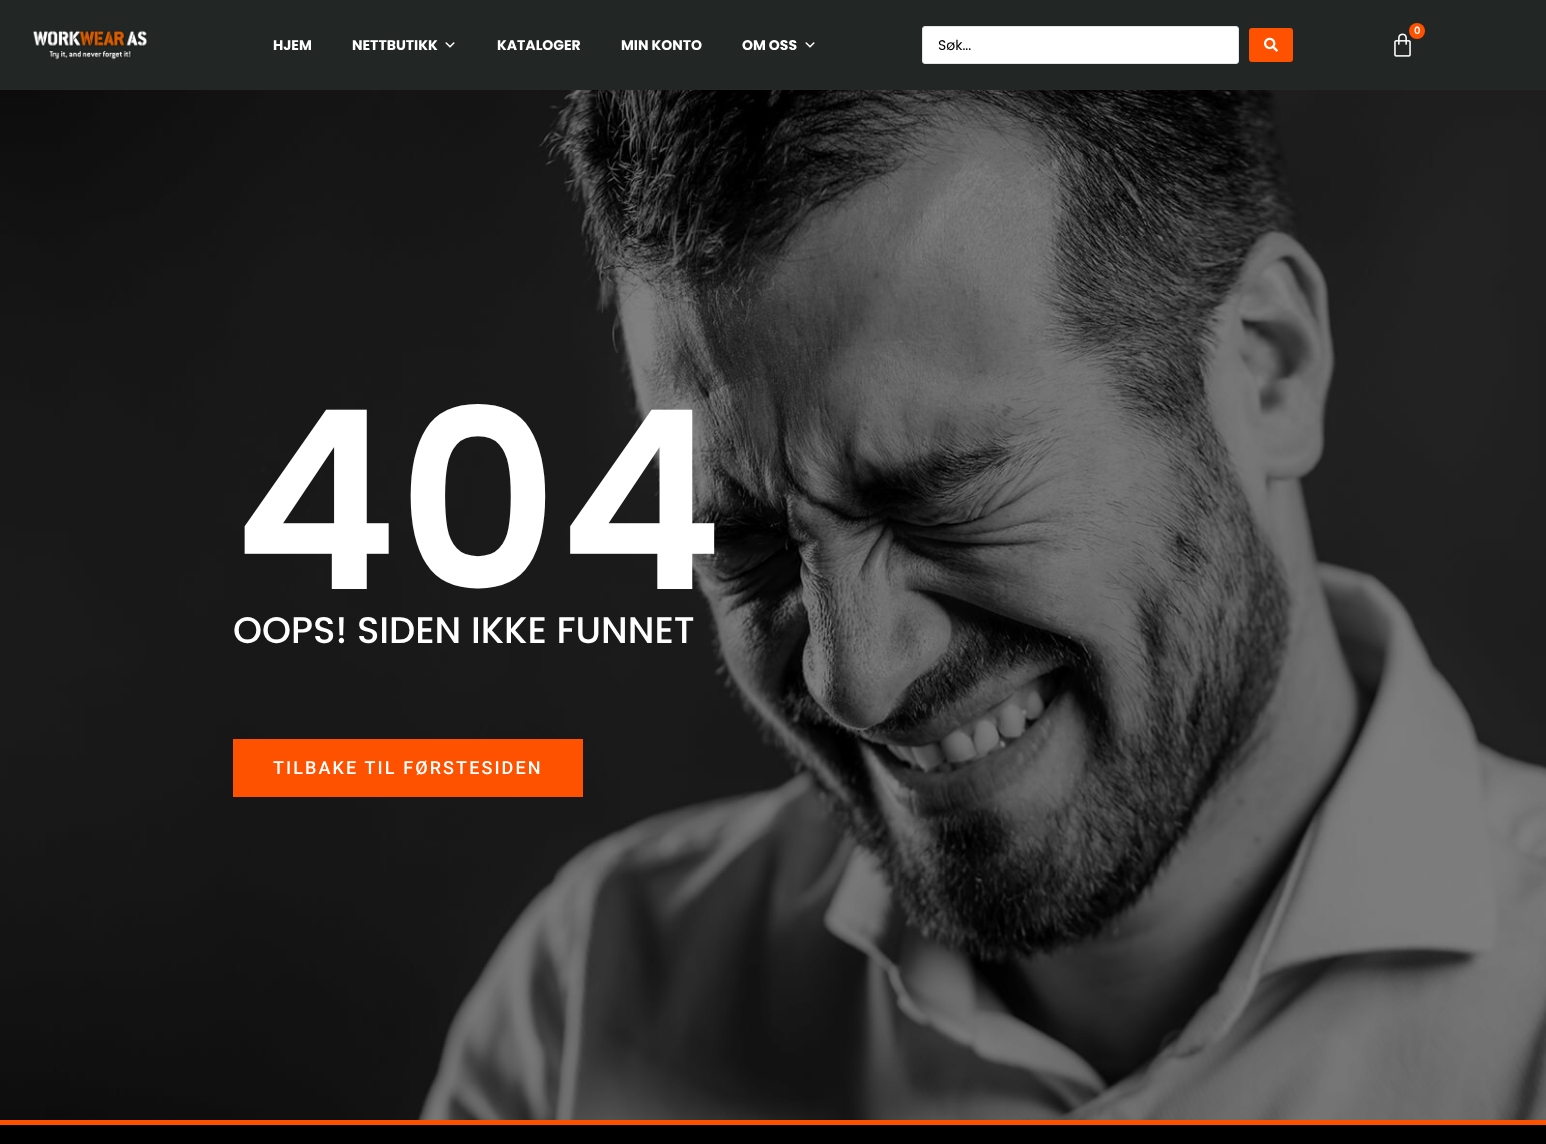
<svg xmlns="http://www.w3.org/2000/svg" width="1546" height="1144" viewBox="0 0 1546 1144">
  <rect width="100%" height="100%" fill="#222625"/>
  <image x="33" y="30" width="115" height="30" href="img/1.png"/>
  <image x="445" y="42" width="10" height="6" href="img/2.png"/>
  <image x="805" y="42" width="10" height="6" href="img/2.png"/>
  <rect x="922.5" y="26.5" width="316" height="37" rx="2.5" fill="#fff" stroke="#e1e5eb"/>
  <rect x="1249" y="28" width="44" height="34" rx="3" fill="#ff5200"/>
  <image x="1264" y="37" width="14" height="15" href="img/3.png"/>
  <image x="1394" y="33" width="17" height="24" href="img/4.png"/>
  <circle cx="1417" cy="31" r="8" fill="#ff5200"/>
  <image x="0" y="90" width="1546" height="1030" href="img/5.png"/>
  <path d="M233 739h350v58H233z" fill="#ff5200"/>
  <path d="M0 1125h1546v19H0z" fill="#000"/>
  <path d="M0 1120h1546v5H0z" fill="#ff5200"/>
  <g font-family="Poppins" font-size="14" font-weight="bold" fill="#fff">
    <text x="273" y="50">HJEM</text>
    <text x="352" y="50">NETTBUTIKK</text>
    <text x="497" y="50">KATALOGER</text>
    <text x="621" y="50">MIN KONTO</text>
    <text x="742" y="50">OM OSS</text>
  </g>
  <text x="938" y="50" font-family="Poppins" font-size="14" fill="#000">Søk...</text>
  <text x="1414" y="34" font-family="Poppins" font-size="10" font-weight="600" fill="#fff">0</text>
  <text x="233" y="589" font-family="Poppins" font-size="249" font-weight="600" fill="#fff">404</text>
  <text x="233" y="643" font-family="Poppins" font-size="37" font-weight="500" fill="#fff">OOPS! SIDEN IKKE FUNNET</text>
  <text x="273" y="774" font-family="Roboto" font-size="18" font-weight="500" letter-spacing="2.1" fill="#fff">TILBAKE TIL FØRSTESIDEN</text>
</svg>
